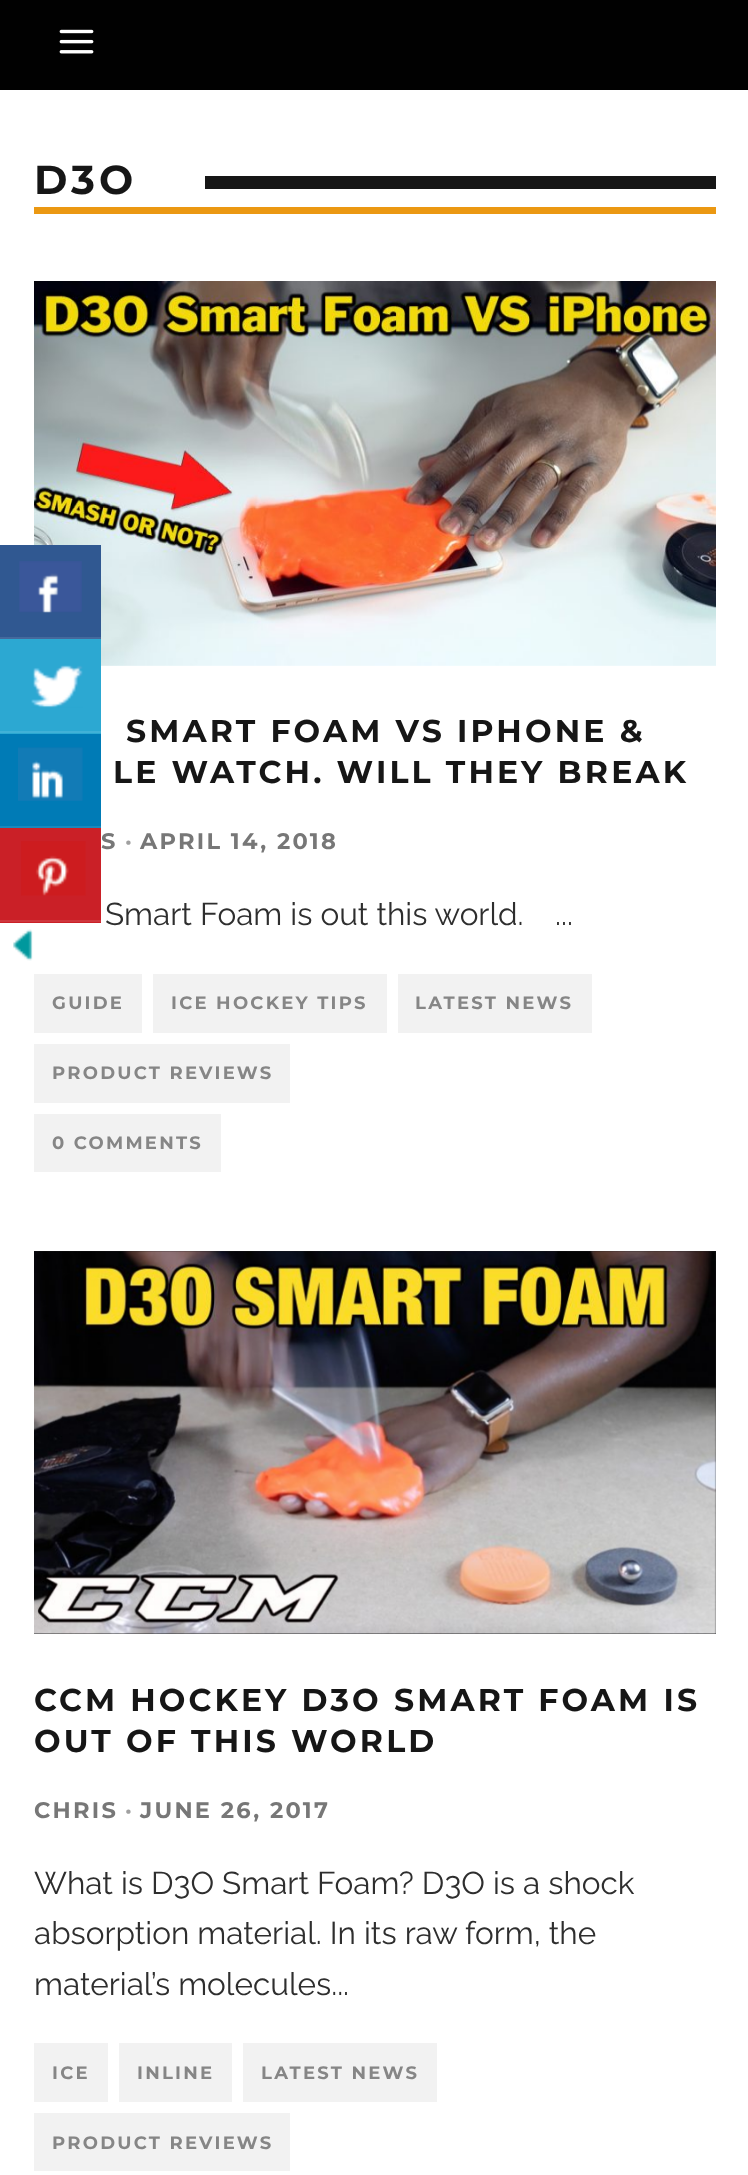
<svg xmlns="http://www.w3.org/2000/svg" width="748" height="2175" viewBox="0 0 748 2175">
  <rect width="100%" height="100%" fill="#fff"/>
  <path d="M0 0h748v90H0z" fill="#010101"/>
  <image x="59" y="29" width="35" height="25" href="img/1.png"/>
  <path d="M34 207h682v7H34z" fill="#eb9812"/>
  <path d="M205 176h511v13H205z" fill="#161616"/>
  <image x="34" y="281" width="682" height="385" href="img/2.png"/>
  <path d="M34 974h108v59H34z" fill="#f2f2f2"/>
  <path d="M153 974h234v59H153z" fill="#f2f2f2"/>
  <path d="M398 974h194v59H398z" fill="#f2f2f2"/>
  <path d="M34 1044h256v59H34z" fill="#f2f2f2"/>
  <path d="M34 1114h187v58H34z" fill="#f2f2f2"/>
  <path d="M34 1251h682v383H34z" fill="#222"/>
  <image x="34" y="1251" width="682" height="383" href="img/3.png"/>
  <path d="M34 2043h74v59H34z" fill="#f2f2f2"/>
  <path d="M119 2043h113v59H119z" fill="#f2f2f2"/>
  <path d="M243 2043h194v59H243z" fill="#f2f2f2"/>
  <path d="M34 2113h256v58H34z" fill="#f2f2f2"/>
  <path d="M0 545h101v92H0z" fill="#305891"/>
  <path d="M0 637h101v2H0z" fill="#45699c"/>
  <image x="19" y="561" width="63" height="52" href="img/4.png"/>
  <path d="M0 639h101v95H0z" fill="#2ca8d2"/>
  <path d="M0 731h101v2H0z" fill="#41b1d7"/>
  <image x="31" y="665" width="52" height="43" href="img/5.png"/>
  <path d="M0 734h101v92H0z" fill="#007bb6"/>
  <path d="M0 826h101v2H0z" fill="#1a88bd"/>
  <image x="18" y="747" width="65" height="54" href="img/6.png"/>
  <path d="M0 828h101v95H0z" fill="#ca2027"/>
  <path d="M0 920h101v2H0z" fill="#cf363d"/>
  <image x="21" y="841" width="65" height="55" href="img/7.png"/>
  <image x="13" y="929" width="20" height="32" href="img/8.png"/>
  <text x="34" y="194" font-family="Montserrat" font-size="40.5" font-weight="bold" letter-spacing="4" fill="#161616">D3O</text>
  <g font-family="Montserrat" font-size="31.5" font-weight="bold" letter-spacing="3.15" fill="#161616">
    <text x="126" y="742">SMART FOAM VS IPHONE &amp;</text>
    <text x="113" y="783">LE WATCH. WILL THEY BREAK</text>
  </g>
  <text x="101" y="849" font-family="Montserrat" font-size="22.5" font-weight="bold" letter-spacing="2.25" fill="#777">S</text>
  <text x="125" y="849" font-family="Montserrat" font-size="22.5" font-weight="bold" letter-spacing="2.25" fill="#a0a0a0">·</text>
  <text x="140" y="849" font-family="Montserrat" font-size="22.5" font-weight="bold" letter-spacing="2.25" fill="#777">APRIL 14, 2018</text>
  <g font-family="Raleway" font-size="31.5" fill="#2e2e2e">
    <text x="105" y="925">Smart Foam is out this world.</text>
    <text x="555" y="925">...</text>
  </g>
  <g font-family="Montserrat" font-size="18" font-weight="bold" letter-spacing="2.25" fill="#868686">
    <text x="52" y="1009">GUIDE</text>
    <text x="171" y="1009">ICE HOCKEY TIPS</text>
    <text x="415" y="1009">LATEST NEWS</text>
    <text x="52" y="1079">PRODUCT REVIEWS</text>
    <text x="52" y="1149">0 COMMENTS</text>
  </g>
  <g font-family="Montserrat" font-size="31.5" font-weight="bold" letter-spacing="3.15" fill="#161616">
    <text x="34" y="1711">CCM HOCKEY D3O SMART FOAM IS</text>
    <text x="34" y="1752">OUT OF THIS WORLD</text>
  </g>
  <text x="34" y="1818" font-family="Montserrat" font-size="22.5" font-weight="bold" letter-spacing="2.25" fill="#777">CHRIS</text>
  <text x="125" y="1818" font-family="Montserrat" font-size="22.5" font-weight="bold" letter-spacing="2.25" fill="#a0a0a0">·</text>
  <text x="140" y="1818" font-family="Montserrat" font-size="22.5" font-weight="bold" letter-spacing="2.25" fill="#777">JUNE 26, 2017</text>
  <g font-family="Raleway" font-size="31.5" fill="#2e2e2e">
    <text x="34" y="1894">What is D3O Smart Foam? D3O is a shock</text>
    <text x="34" y="1944">absorption material. In its raw form, the</text>
    <text x="34" y="1995">material’s molecules...</text>
  </g>
  <g font-family="Montserrat" font-size="18" font-weight="bold" letter-spacing="2.25" fill="#868686">
    <text x="52" y="2079">ICE</text>
    <text x="137" y="2079">INLINE</text>
    <text x="261" y="2079">LATEST NEWS</text>
    <text x="52" y="2149">PRODUCT REVIEWS</text>
  </g>
</svg>
